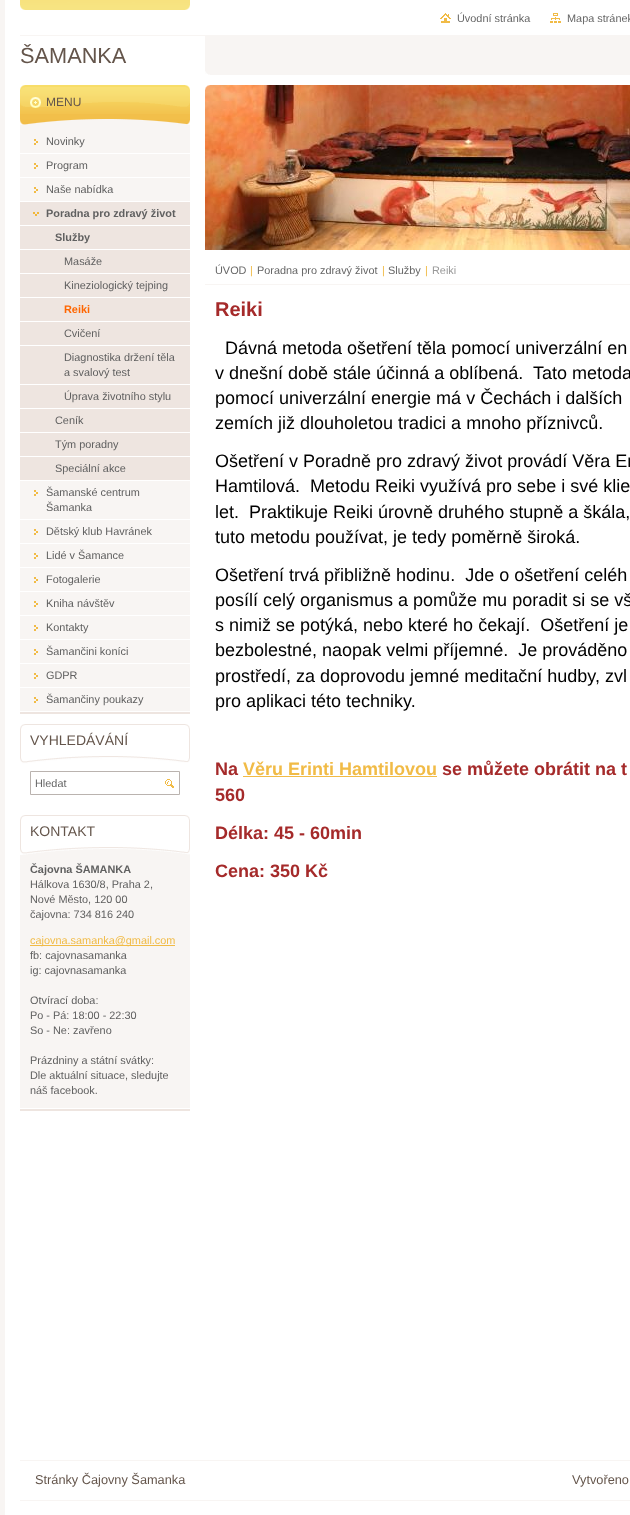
<svg xmlns="http://www.w3.org/2000/svg" width="630" height="1515" viewBox="0 0 630 1515">
  <rect width="100%" height="100%" fill="#fff"/>
  <image x="20" y="0" width="170" height="10" href="img/1.png"/>
  <path d="M0 0h5v1515H0z" fill="#f8f5f3"/>
  <image x="440" y="13" width="11" height="10" href="img/2.png"/>
  <image x="550" y="13" width="11" height="10" href="img/3.png"/>
  <image x="20" y="35" width="610" height="6" href="img/4.png"/>
  <path d="M205 41h425v34H205z" fill="#f8f5f3"/>
  <image x="205" y="71" width="5" height="4" href="img/5.png"/>
  <path d="M20 712h170v2H20z" fill="#eee5e0"/>
  <path d="M20 125h170v586H20z" fill="#f8f5f3"/>
  <path d="M20 114h170v5H20z" fill="#f2bf4a"/>
  <image x="20" y="85" width="170" height="29" href="img/6.png"/>
  <image x="20" y="119" width="170" height="6" href="img/7.png"/>
  <image x="34" y="139" width="4" height="6" href="img/8.png"/>
  <path d="M20 153h170v1H20z" fill="#fff"/>
  <image x="34" y="163" width="4" height="6" href="img/8.png"/>
  <path d="M20 177h170v1H20z" fill="#fff"/>
  <image x="34" y="187" width="4" height="6" href="img/8.png"/>
  <path d="M20 201h170v1H20z" fill="#fff"/>
  <path d="M20 202h170v278H20z" fill="#eee5e0"/>
  <image x="33" y="212" width="6" height="4" href="img/9.png"/>
  <path d="M20 225h170v1H20z" fill="#fff"/>
  <path d="M20 249h170v1H20z" fill="#fff"/>
  <path d="M20 273h170v1H20z" fill="#fff"/>
  <path d="M20 297h170v1H20z" fill="#fff"/>
  <path d="M20 321h170v1H20z" fill="#fff"/>
  <path d="M20 345h170v1H20z" fill="#fff"/>
  <path d="M20 384h170v1H20z" fill="#fff"/>
  <path d="M20 408h170v1H20z" fill="#fff"/>
  <path d="M20 432h170v1H20z" fill="#fff"/>
  <path d="M20 456h170v1H20z" fill="#fff"/>
  <path d="M20 480h170v1H20z" fill="#fff"/>
  <image x="34" y="490" width="4" height="6" href="img/8.png"/>
  <path d="M20 519h170v1H20z" fill="#fff"/>
  <image x="34" y="529" width="4" height="6" href="img/8.png"/>
  <path d="M20 543h170v1H20z" fill="#fff"/>
  <image x="34" y="553" width="4" height="6" href="img/8.png"/>
  <path d="M20 567h170v1H20z" fill="#fff"/>
  <image x="34" y="577" width="4" height="6" href="img/8.png"/>
  <path d="M20 591h170v1H20z" fill="#fff"/>
  <image x="34" y="601" width="4" height="6" href="img/8.png"/>
  <path d="M20 615h170v1H20z" fill="#fff"/>
  <image x="34" y="625" width="4" height="6" href="img/8.png"/>
  <path d="M20 639h170v1H20z" fill="#fff"/>
  <image x="34" y="649" width="4" height="6" href="img/8.png"/>
  <path d="M20 663h170v1H20z" fill="#fff"/>
  <image x="34" y="673" width="4" height="6" href="img/8.png"/>
  <path d="M20 687h170v1H20z" fill="#fff"/>
  <image x="34" y="697" width="4" height="6" href="img/8.png"/>
  <image x="20" y="724" width="170" height="32" href="img/10.png"/>
  <image x="20" y="756" width="170" height="8" href="img/11.png"/>
  <path d="M30.5 771.5h149v23H30.5z" fill="none" stroke="#bab3af"/>
  <image x="165" y="779" width="9" height="9" href="img/12.png"/>
  <path d="M20 1109h170v2H20z" fill="#eee5e0"/>
  <path d="M20 855h170v253H20z" fill="#f8f5f3"/>
  <image x="20" y="815" width="170" height="32" href="img/10.png"/>
  <image x="20" y="847" width="170" height="8" href="img/13.png"/>
  <path d="M30 945h145v1H30z" fill="#f1bb46"/>
  <image x="205" y="85" width="425" height="165" href="img/14.png"/>
  <image x="205" y="85" width="5" height="5" href="img/15.png"/>
  <path d="M205 284h425v1H205z" fill="#f8f5f3"/>
  <path d="M243 776h194v1H243z" fill="#f1bb46"/>
  <path d="M20 1460h610v1H20z" fill="#f8f5f3"/>
  <path d="M20 1500h610v1H20z" fill="#f8f5f3"/>
  <g font-family="Liberation Sans" font-size="10.9" fill="#666">
    <text x="457" y="22">Úvodní stránka</text>
    <text x="567" y="22">Mapa stránek</text>
  </g>
  <text x="20" y="63" font-family="Liberation Sans" font-size="21.75" fill="#64554b">ŠAMANKA</text>
  <text x="46" y="106" font-family="Liberation Sans" font-size="12" fill="#64554b">MENU</text>
  <g font-family="Liberation Sans" font-size="10.9" fill="#606060">
    <text x="46" y="145">Novinky</text>
    <text x="46" y="169">Program</text>
    <text x="46" y="193">Naše nabídka</text>
  </g>
  <g font-family="Liberation Sans" font-size="10.9" font-weight="bold" fill="#606060">
    <text x="46" y="217">Poradna pro zdravý život</text>
    <text x="55" y="241">Služby</text>
  </g>
  <g font-family="Liberation Sans" font-size="10.9" fill="#606060">
    <text x="64" y="265">Masáže</text>
    <text x="64" y="289">Kineziologický tejping</text>
  </g>
  <text x="64" y="313" font-family="Liberation Sans" font-size="10.9" font-weight="bold" fill="#f60">Reiki</text>
  <g font-family="Liberation Sans" font-size="10.9" fill="#606060">
    <text x="64" y="337">Cvičení</text>
    <text x="64" y="361">Diagnostika držení těla</text>
    <text x="64" y="376">a svalový test</text>
    <text x="64" y="400">Úprava životního stylu</text>
    <text x="55" y="424">Ceník</text>
    <text x="55" y="448">Tým poradny</text>
    <text x="55" y="472">Speciální akce</text>
    <text x="46" y="496">Šamanské centrum</text>
    <text x="46" y="511">Šamanka</text>
    <text x="46" y="535">Dětský klub Havránek</text>
    <text x="46" y="559">Lidé v Šamance</text>
    <text x="46" y="583">Fotogalerie</text>
    <text x="46" y="607">Kniha návštěv</text>
    <text x="46" y="631">Kontakty</text>
    <text x="46" y="655">Šamančini koníci</text>
    <text x="46" y="679">GDPR</text>
    <text x="46" y="703">Šamančiny poukazy</text>
  </g>
  <text x="30" y="745" font-family="Liberation Sans" font-size="14" fill="#64554b">VYHLEDÁVÁNÍ</text>
  <text x="35" y="787" font-family="Liberation Sans" font-size="10.9" fill="#666">Hledat</text>
  <text x="30" y="836" font-family="Liberation Sans" font-size="14" fill="#64554b">KONTAKT</text>
  <text x="30" y="873" font-family="Liberation Sans" font-size="10.9" font-weight="bold" fill="#606060">Čajovna ŠAMANKA</text>
  <g font-family="Liberation Sans" font-size="10.9" fill="#606060">
    <text x="30" y="888">Hálkova 1630/8, Praha 2,</text>
    <text x="30" y="903">Nové Město, 120 00</text>
    <text x="30" y="918">čajovna: 734 816 240</text>
  </g>
  <text x="30" y="944" font-family="Liberation Sans" font-size="10.9" fill="#f1bb46">cajovna.samanka@gmail.com</text>
  <g font-family="Liberation Sans" font-size="10.9" fill="#606060">
    <text x="30" y="959">fb: cajovnasamanka</text>
    <text x="30" y="974">ig: cajovnasamanka</text>
    <text x="30" y="1004">Otvírací doba:</text>
    <text x="30" y="1019">Po - Pá: 18:00 - 22:30</text>
    <text x="30" y="1034">So - Ne: zavřeno</text>
    <text x="30" y="1064">Prázdniny a státní svátky:</text>
    <text x="30" y="1079">Dle aktuální situace, sledujte</text>
    <text x="30" y="1094">náš facebook.</text>
  </g>
  <text x="215" y="274" font-family="Liberation Sans" font-size="10.9" fill="#666">ÚVOD</text>
  <text x="250" y="274" font-family="Liberation Sans" font-size="10.9" fill="#f1bb46">|</text>
  <text x="257" y="274" font-family="Liberation Sans" font-size="10.9" fill="#666">Poradna pro zdravý život</text>
  <text x="382" y="274" font-family="Liberation Sans" font-size="10.9" fill="#f1bb46">|</text>
  <text x="388" y="274" font-family="Liberation Sans" font-size="10.9" fill="#666">Služby</text>
  <text x="425" y="274" font-family="Liberation Sans" font-size="10.9" fill="#f1bb46">|</text>
  <text x="432" y="274" font-family="Liberation Sans" font-size="10.9" fill="#999">Reiki</text>
  <text x="215" y="316" font-family="Liberation Sans" font-size="20" font-weight="bold" fill="#a52a2a">Reiki</text>
  <g font-family="Liberation Sans" font-size="18" fill="#000">
    <text x="225" y="354">Dávná metoda ošetření těla pomocí univerzální en</text>
    <text x="215" y="379" xml:space="preserve">v dnešní době stále účinná a oblíbená.  Tato metoda</text>
    <text x="215" y="404">pomocí univerzální energie má v Čechách i dalších</text>
    <text x="215" y="429">zemích již dlouholetou tradici a mnoho příznivců.</text>
    <text x="215" y="467">Ošetření v Poradně pro zdravý život provádí Věra Er</text>
    <text x="215" y="492" xml:space="preserve">Hamtilová.  Metodu Reiki využívá pro sebe i své klie</text>
    <text x="215" y="518" xml:space="preserve">let.  Praktikuje Reiki úrovně druhého stupně a škála,</text>
    <text x="215" y="543">tuto metodu používat, je tedy poměrně široká.</text>
    <text x="215" y="581" xml:space="preserve">Ošetření trvá přibližně hodinu.  Jde o ošetření celéh</text>
    <text x="215" y="606">posílí celý organismus a pomůže mu poradit si se vš</text>
    <text x="215" y="631" xml:space="preserve">s nimiž se potýká, nebo které ho čekají.  Ošetření je</text>
    <text x="215" y="656" xml:space="preserve">bezbolestné, naopak velmi příjemné.  Je prováděno</text>
    <text x="215" y="682">prostředí, za doprovodu jemné meditační hudby, zvl</text>
    <text x="215" y="707">pro aplikaci této techniky.</text>
  </g>
  <text x="215" y="775" font-family="Liberation Sans" font-size="18" font-weight="bold" fill="#a52a2a">Na</text>
  <text x="243" y="775" font-family="Liberation Sans" font-size="18" font-weight="bold" fill="#f1bb46">Věru Erinti Hamtilovou</text>
  <g font-family="Liberation Sans" font-size="18" font-weight="bold" fill="#a52a2a">
    <text x="442" y="775">se můžete obrátit na t</text>
    <text x="215" y="801">560</text>
    <text x="215" y="839">Délka: 45 - 60min</text>
    <text x="215" y="877">Cena: 350 Kč</text>
  </g>
  <g font-family="Liberation Sans" font-size="12.75" fill="#64554b">
    <text x="35" y="1484">Stránky Čajovny Šamanka</text>
    <text x="572" y="1484">Vytvořeno</text>
  </g>
</svg>
